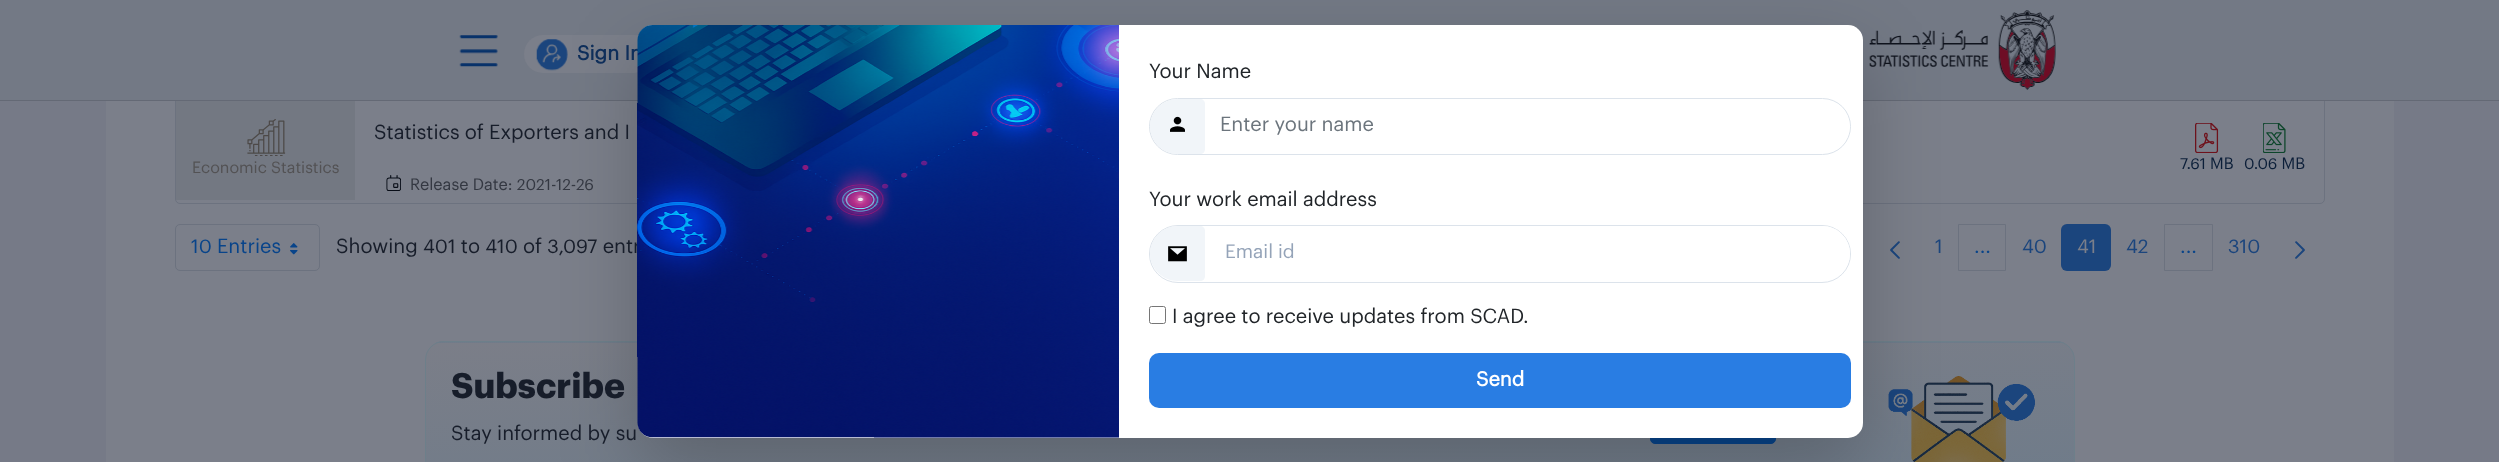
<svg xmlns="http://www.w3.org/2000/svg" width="2499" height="462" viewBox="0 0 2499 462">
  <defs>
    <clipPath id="clip1"><rect x="425" y="341" width="1650" height="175" rx="19"/></clipPath>
    <linearGradient id="g1" gradientUnits="userSpaceOnUse" x1="1246" y1="141" x2="1254" y2="371"><stop offset="0" stop-color="#7b7e88"/><stop offset="1" stop-color="#6d7b8a"/></linearGradient>
    <linearGradient id="g2" gradientUnits="userSpaceOnUse" x1="1246" y1="314" x2="1254" y2="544"><stop offset="0" stop-color="#7b7e88"/><stop offset="1" stop-color="#6d7b8a"/></linearGradient>
    <clipPath id="clip2"><rect x="1150" y="99" width="700" height="55" rx="27.5"/></clipPath>
  </defs>
  <rect width="100%" height="100%" fill="#767a87"/>
  <path d="M106 101h2288v361H106z" fill="#7b7f8a"/>
  <rect x="175.5" y="96.5" width="2149" height="107" rx="4.5" fill="none" stroke="#6c727f"/>
  <path d="M0 0h2499v100H0z" fill="#737985"/>
  <path d="M0 100h2499v1H0z" fill="#646975"/>
  <image x="459" y="35" width="39" height="32" href="img/1.png"/>
  <rect x="524" y="35" width="129" height="38" rx="19" fill="#7b7f8a"/>
  <image x="536" y="39" width="32" height="32" href="img/2.png"/>
  <image x="1869" y="10" width="187" height="80" href="img/3.png"/>
  <g clip-path="url(#clip1)">
    <path d="M435 341h1630v2H435z" fill="url(#g1)"/>
    <path d="M426 343h1648v119H426z" fill="url(#g2)"/>
  </g>
  <rect x="425.5" y="341.5" width="1649" height="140" rx="18.5" fill="none" stroke="#6d7f8a"/>
  <rect x="1650.5" y="396.5" width="125" height="47" rx="4.5" fill="#08448a" stroke="#08448a"/>
  <image x="1888" y="376" width="147" height="86" href="img/7.png"/>
  <image x="1890" y="241" width="10" height="18" href="img/13.png"/>
  <path d="M1958.5 224.5h47v46H1958.5z" fill="none" stroke="#6c727f"/>
  <rect x="638" y="55" width="1225" height="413" rx="15" fill="#00000033" filter="blur(37.5px)"/>
  <path d="M176 101h179v99H176z" fill="#737882"/>
  <image x="247" y="119" width="39" height="37" href="img/8.png"/>
  <image x="386" y="175" width="15" height="16" href="img/9.png"/>
  <image x="2195" y="123" width="24" height="30" href="img/10.png"/>
  <image x="2263" y="123" width="23" height="30" href="img/11.png"/>
  <rect x="175.5" y="224.5" width="144" height="46" rx="4.5" fill="none" stroke="#6c727f"/>
  <image x="290" y="243" width="8" height="12" href="img/12.png"/>
  <rect x="2061" y="224" width="50" height="47" rx="6" fill="#1b457d"/>
  <path d="M2164.5 224.5h48v46H2164.5z" fill="none" stroke="#6c727f"/>
  <image x="2295" y="241" width="10" height="18" href="img/14.png"/>
  <text x="577" y="60" font-family="'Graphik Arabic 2'" font-size="20" font-weight="bold" fill="#0e2e5a">Sign In</text>
  <text x="451" y="398" font-family="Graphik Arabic" font-size="35" font-weight="bold" fill="#171d2a">Subscribe</text>
  <text x="451" y="440" font-family="Graphik Arabic" font-size="20" fill="#171d2a">Stay informed by su</text>
  <text x="192" y="173" font-family="Graphik Arabic" font-size="16" fill="#535254">Economic Statistics</text>
  <text x="374" y="139" font-family="Graphik Arabic" font-size="20" fill="#171d2a">Statistics of Exporters and I</text>
  <text x="410" y="190" font-family="Graphik Arabic" font-size="16.25" fill="#343842">Release Date: 2021-12-26</text>
  <g font-family="Graphik Arabic" font-size="16" fill="#0b1e38">
    <text x="2180" y="169">7.61 MB</text>
    <text x="2244" y="169">0.06 MB</text>
  </g>
  <text x="191" y="253" font-family="Graphik Arabic" font-size="20" fill="#08448a">10 Entries</text>
  <text x="336" y="253" font-family="Graphik Arabic" font-size="20" fill="#171d2a">Showing 401 to 410 of 3,097 entr</text>
  <rect x="638" y="25" width="1225" height="413" rx="15" fill="#fff"/>
  <text x="1172" y="323" font-family="Graphik Arabic" font-size="20" fill="#212529">I agree to receive updates from SCAD.</text>
  <rect x="1149.5" y="306.5" width="16" height="17" rx="2" fill="none" stroke="#767676"/>
  <rect x="1149.5" y="225.5" width="701" height="57" rx="28.5" fill="none" stroke="#dce3eb"/>
  <path d="M1205 226H1822.5C1837.5 226 1850 238.5 1850 253.5C1850 268.5 1837.5 281 1822.5 281H1205Z" fill="#fff"/>
  <text x="1225" y="258" font-family="Graphik Arabic" font-size="19" fill="#94a3b8">Email id</text>
  <path d="M1177.5 226H1200C1203 226 1205 228 1205 231V276C1205 279 1203 281 1200 281H1177.5C1162.5 281 1150 268.5 1150 253.5C1150 238.5 1162.5 226 1177.5 226Z" fill="#f1f5f9"/>
  <image x="1168" y="246" width="19" height="16" href="img/6.png"/>
  <rect x="1149.5" y="98.5" width="701" height="56" rx="28" fill="none" stroke="#dce3eb"/>
  <g clip-path="url(#clip2)">
    <path d="M1205 103H1826.5C1839.5 103 1850 113.5 1850 126.5C1850 139.5 1839.5 150 1826.5 150H1205Z" fill="#fff"/>
  </g>
  <text x="1220" y="131" font-family="Graphik Arabic" font-size="20" fill="#6c757d">Enter your name</text>
  <path d="M1177.5 99H1200C1203 99 1205 101 1205 104V149C1205 152 1203 154 1200 154H1177.5C1162.5 154 1150 141.5 1150 126.5C1150 111.5 1162.5 99 1177.5 99Z" fill="#f1f5f9"/>
  <image x="1170" y="116" width="15" height="16" href="img/5.png"/>
  <rect x="1149" y="353" width="702" height="55" rx="10" fill="#297de3"/>
  <text x="1476" y="386" font-family="'Graphik Arabic 2'" font-size="20" font-weight="bold" fill="#fff">Send</text>
  <g font-family="Graphik Arabic" font-size="20" fill="#212529">
    <text x="1149" y="206">Your work email address</text>
    <text x="1149" y="78">Your Name</text>
  </g>
  <image x="637" y="25" width="482" height="413" href="img/4.png"/>
  <text x="1935" y="253" font-family="Graphik Arabic" font-size="20" fill="#1b457d">1</text>
  <text x="1974" y="253" font-family="Graphik Arabic" font-size="20" fill="#08448a">...</text>
  <text x="2022" y="253" font-family="Graphik Arabic" font-size="20" fill="#1b457d">40</text>
  <text x="2077" y="253" font-family="Graphik Arabic" font-size="20" fill="#7b7f8a">41</text>
  <text x="2126" y="253" font-family="Graphik Arabic" font-size="20" fill="#1b457d">42</text>
  <text x="2180" y="253" font-family="Graphik Arabic" font-size="20" fill="#08448a">...</text>
  <text x="2228" y="253" font-family="Graphik Arabic" font-size="20" fill="#1b457d">310</text>
</svg>
